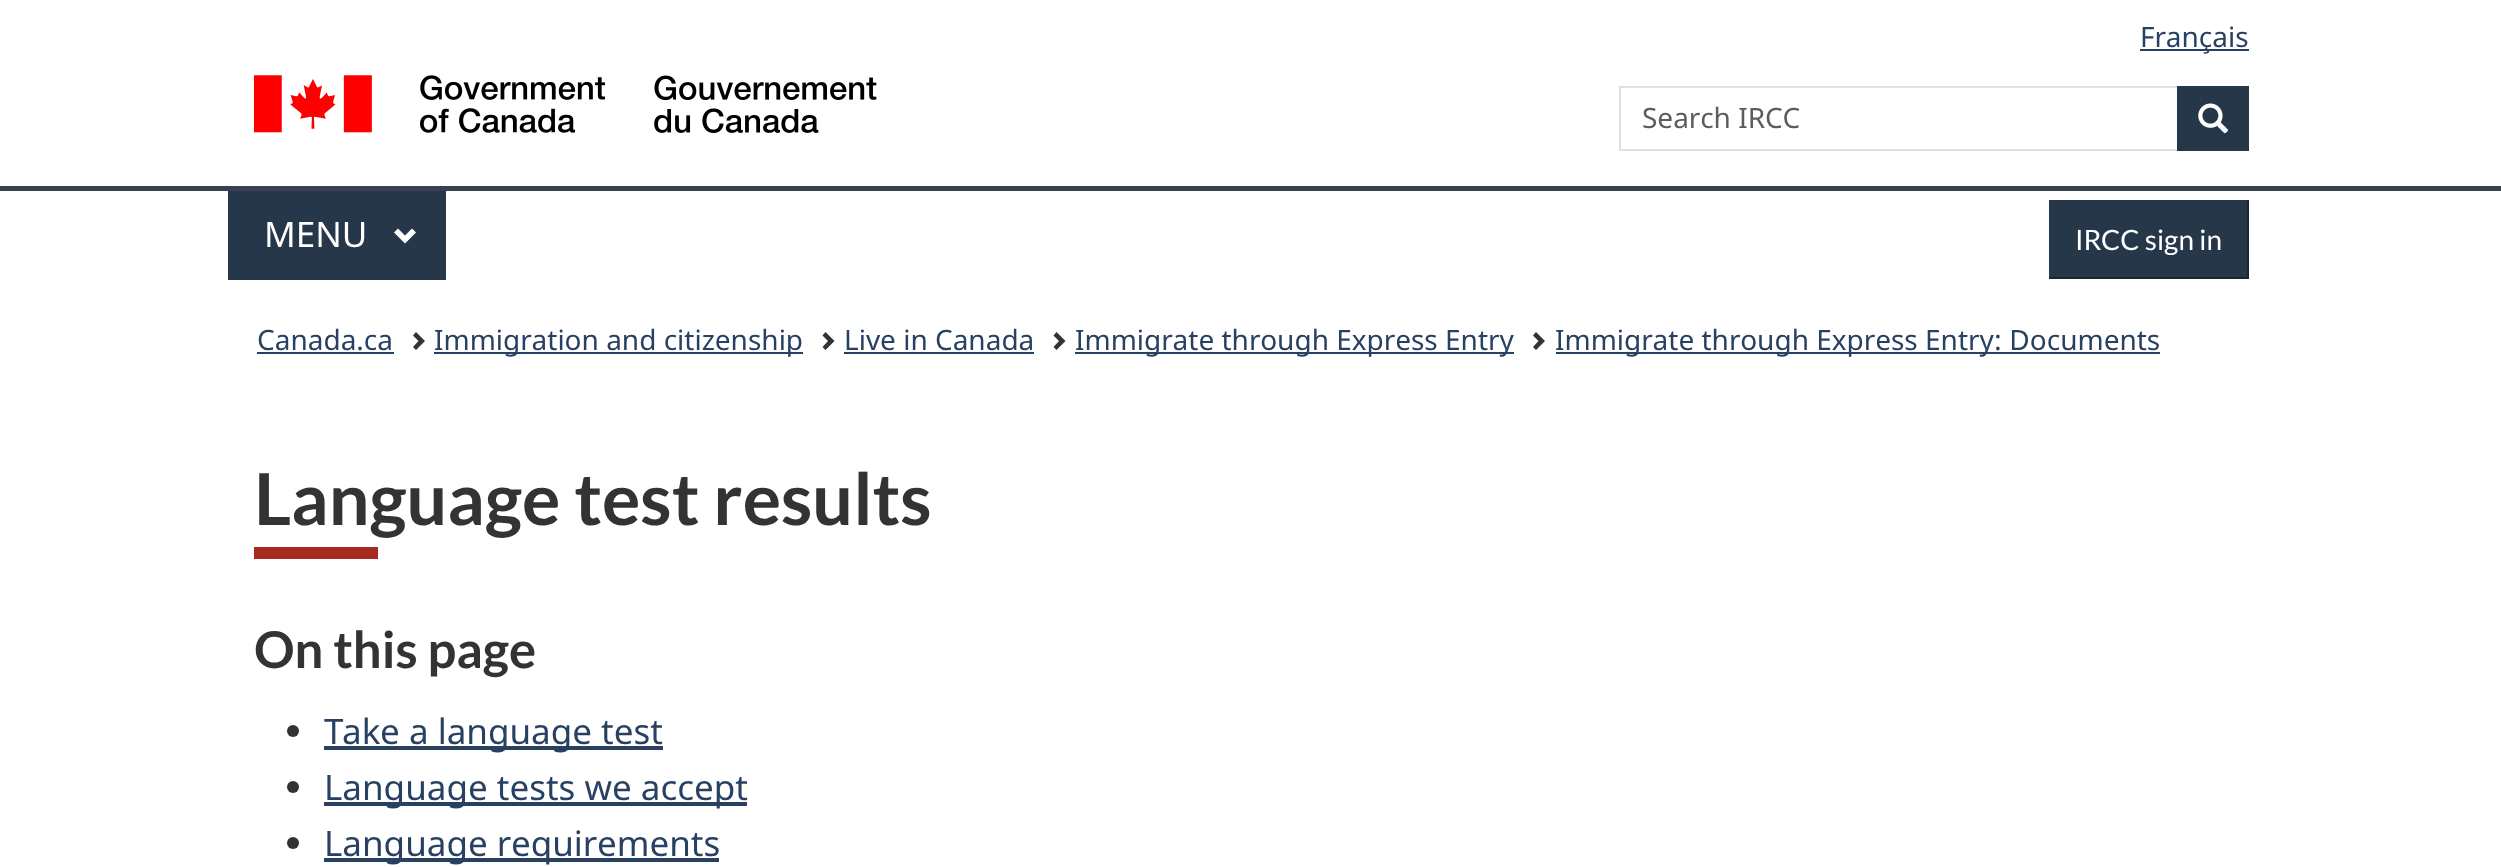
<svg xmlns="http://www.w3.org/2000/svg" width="2501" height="867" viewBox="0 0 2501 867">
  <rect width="100%" height="100%" fill="#fff"/>
  <path d="M2140 49h109v2H2140z" fill="#284162"/>
  <image x="254" y="75" width="623" height="58" href="img/1.png"/>
  <path d="M1620 87h628v63H1620z" fill="none" stroke="#e0e0e0" stroke-width="2"/>
  <path d="M2177 86h72v65H2177z" fill="#26374a"/>
  <image x="2198" y="103" width="30" height="31" href="img/2.png"/>
  <path d="M0 186h2501v5H0z" fill="#38414d"/>
  <path d="M228 191h218v89H228z" fill="#26374a"/>
  <path d="M416 232.5L405 243.5L394 232.5L398 228.5L405 235.5L412 228.5Z" fill="#fff"/>
  <path d="M2051 200h196v77H2051z" fill="#26374a"/>
  <path d="M2247 200h2v78H2247z" fill="#192531"/>
  <path d="M2049 277h200v2H2049z" fill="#192531"/>
  <path d="M2049 200h2v78H2049z" fill="#26374a"/>
  <path d="M257 352h137v2H257z" fill="#284162"/>
  <path d="M425 341L416 350L413 347L418.5 341L413 335.5L416 332Z" fill="#333"/>
  <path d="M434 352h369v2H434z" fill="#284162"/>
  <path d="M834.5 341L825.5 350L822.5 347L828 341L822.5 335.5L825.5 332Z" fill="#333"/>
  <path d="M844 352h190v2H844z" fill="#284162"/>
  <path d="M1065.5 341L1056.5 350L1053.5 347L1059 341L1053.5 335.5L1056.5 332Z" fill="#333"/>
  <path d="M1075 352h439v2H1075z" fill="#284162"/>
  <path d="M1545 341L1536 350L1533 347L1538.5 341L1533 335.5L1536 332Z" fill="#333"/>
  <path d="M1556 352h604v2H1556z" fill="#284162"/>
  <path d="M254 547h124v12H254z" fill="#a62a1e"/>
  <circle cx="293" cy="731" r="6" fill="#333"/>
  <path d="M324 746h339v4H324z" fill="#284162"/>
  <circle cx="293" cy="787" r="6" fill="#333"/>
  <path d="M324 802h423v4H324z" fill="#284162"/>
  <circle cx="293" cy="843" r="6" fill="#333"/>
  <path d="M324 858h395v4H324z" fill="#284162"/>
  <text x="2140" y="47" font-family="Noto Sans" font-size="28" fill="#284162">Français</text>
  <text x="1642" y="128" font-family="Noto Sans" font-size="28" fill="#5c5c5c">Search IRCC</text>
  <text x="264" y="247" font-family="Noto Sans" font-size="35" fill="#fff">MENU</text>
  <text x="2075" y="250" font-family="Lato" font-size="28" fill="#fff">IRCC sign in</text>
  <g font-family="Noto Sans" font-size="28" fill="#284162">
    <text x="257" y="350">Canada.ca</text>
    <text x="434" y="350">Immigration and citizenship</text>
    <text x="844" y="350">Live in Canada</text>
    <text x="1075" y="350">Immigrate through Express Entry</text>
    <text x="1555" y="350">Immigrate through Express Entry: Documents</text>
  </g>
  <text x="254" y="525" font-family="Lato" font-size="71.75" font-weight="bold" fill="#333">Language test results</text>
  <text x="254" y="668" font-family="Lato" font-size="50.75" font-weight="bold" fill="#333">On this page</text>
  <g font-family="Noto Sans" font-size="35" fill="#284162">
    <text x="324" y="744">Take a language test</text>
    <text x="324" y="800">Language tests we accept</text>
    <text x="324" y="856">Language requirements</text>
  </g>
</svg>
